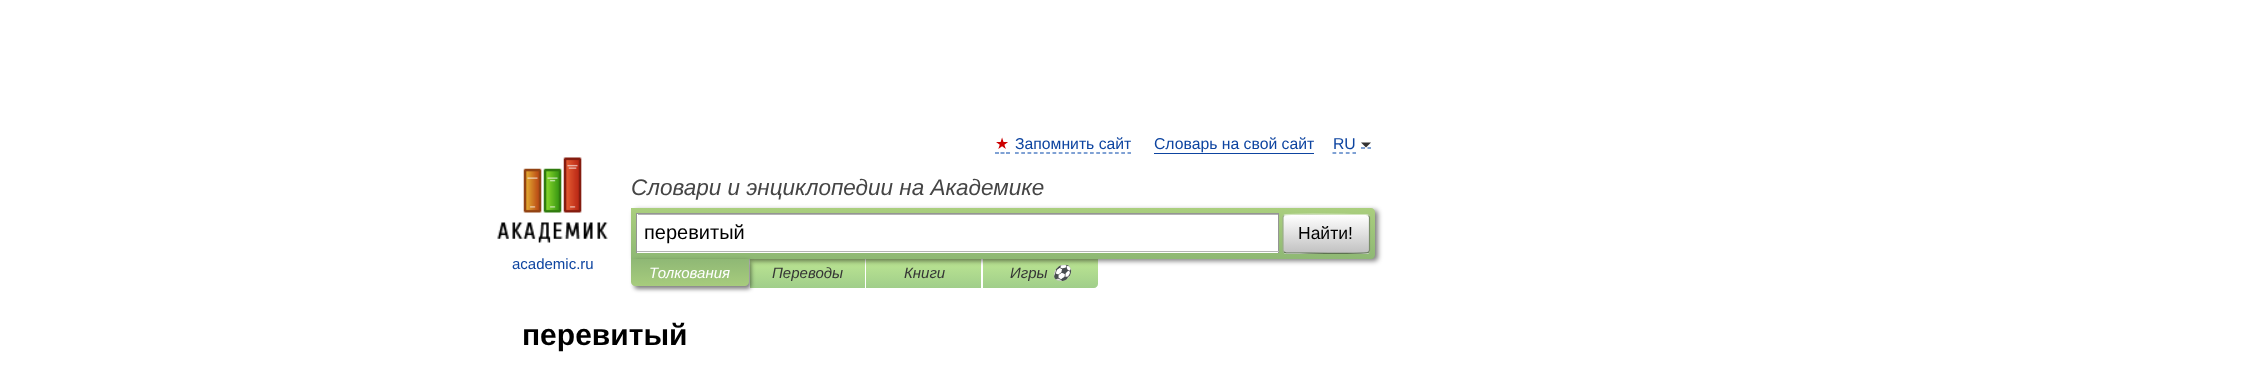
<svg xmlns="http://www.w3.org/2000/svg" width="2261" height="368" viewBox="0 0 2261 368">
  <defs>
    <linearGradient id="g1" gradientUnits="userSpaceOnUse" x1="808" y1="259" x2="808" y2="288"><stop offset="0" stop-color="#bde693"/><stop offset="1" stop-color="#a0ce8a"/></linearGradient>
    <linearGradient id="g2" gradientUnits="userSpaceOnUse" x1="924" y1="259" x2="924" y2="288"><stop offset="0" stop-color="#bde693"/><stop offset="1" stop-color="#a0ce8a"/></linearGradient>
    <linearGradient id="g3" gradientUnits="userSpaceOnUse" x1="1040" y1="259" x2="1040" y2="288"><stop offset="0" stop-color="#bde693"/><stop offset="1" stop-color="#a0ce8a"/></linearGradient>
    <linearGradient id="g4" gradientUnits="userSpaceOnUse" x1="1003" y1="207" x2="1003" y2="259"><stop offset="0" stop-color="#abcf7e"/><stop offset="1" stop-color="#8eb874"/></linearGradient>
    <clipPath id="clip1"><rect x="1283" y="214" width="87" height="40" rx="4"/></clipPath>
    <linearGradient id="g5" gradientUnits="userSpaceOnUse" x1="1326" y1="178" x2="1326" y2="215"><stop offset="0" stop-color="#fff"/><stop offset="1" stop-color="#c1c1c1"/></linearGradient>
    <linearGradient id="g6" gradientUnits="userSpaceOnUse" x1="1326" y1="215" x2="1326" y2="253"><stop offset="0" stop-color="#fff"/><stop offset="1" stop-color="#c1c1c1"/></linearGradient>
    <linearGradient id="g7" gradientUnits="userSpaceOnUse" x1="1326" y1="253" x2="1326" y2="290"><stop offset="0" stop-color="#fff"/><stop offset="1" stop-color="#c1c1c1"/></linearGradient>
    <linearGradient id="g8" gradientUnits="userSpaceOnUse" x1="690" y1="259" x2="690" y2="286"><stop offset="0" stop-color="#8fb875"/><stop offset="1" stop-color="#a7cc7d"/></linearGradient>
  </defs>
  <rect width="100%" height="100%" fill="#fff"/>
  <path d="M995 153H999M1000.5 153H1004.5M1006 153H1010" fill="none" stroke="#04a" stroke-width="1.2"/>
  <path d="M1015 153H1131" fill="none" stroke="#04a" stroke-width="1.2" stroke-dasharray="3.75 2.5"/>
  <path d="M1154 153h160v1H1154z" fill="#0d44a0"/>
  <path d="M1332.5 153H1356" fill="none" stroke="#04a" stroke-width="1.2" stroke-dasharray="3.75 2.91"/>
  <path d="M1361 148H1365M1367.5 148H1371" fill="none" stroke="#04a" stroke-width="1.2"/>
  <path d="M1361 142.5H1371L1366 147.5Z" fill="#333"/>
  <path d="M750 259h115v29H750z" fill="url(#g1)"/>
  <path d="M866 259h115v29H866z" fill="url(#g2)"/>
  <path d="M983 259H1098V284C1098 286 1096 288 1094 288H983Z" fill="url(#g3)"/>
  <rect x="634" y="210" width="744" height="51" rx="4" fill="#00000080" filter="blur(2.5px)"/>
  <path d="M631 208H1371C1373 208 1375 210 1375 212V255C1375 257 1373 259 1371 259H631Z" fill="url(#g4)"/>
  <path d="M637 214h641v39H637z" fill="#fff"/>
  <path d="M638 214h640v1H638z" fill="#b3b3b3"/>
  <path d="M636 213h643v1H636z" fill="#949494"/>
  <path d="M1278 213h1v40H1278z" fill="#949494"/>
  <path d="M636 251h643v1H636z" fill="#b4b4b4"/>
  <path d="M636 213h1v40H636z" fill="#949494"/>
  <g clip-path="url(#clip1)">
    <path d="M1283 214h87v1H1283z" fill="url(#g5)"/>
    <path d="M1283 215h87v38H1283z" fill="url(#g6)"/>
    <path d="M1283 253h87v1H1283z" fill="url(#g7)"/>
  </g>
  <path d="M1284 215.5L1284.5 215C1286.5 213.5 1345.5 214.5 1353 214.5H1366L1368.5 215.5" fill="none" stroke="#d1e4bc" stroke-width="1.2"/>
  <path d="M1368.5 215.5C1369 216 1369.5 216.5 1369.5 217.5V250C1369.5 251 1369 251.5 1368.5 252" fill="none" stroke="#7a8e69" stroke-width="1.2"/>
  <path d="M1368.5 252L1368 252.5C1366 254 1307 253 1299.5 253H1286L1284 252" fill="none" stroke="#5d7250" stroke-width="1.2"/>
  <path d="M1284 252C1283.5 251.5 1283 251 1283 250V217.5C1283 216.5 1283.5 216 1284 215.5" fill="none" stroke="#9aae89" stroke-width="1.2"/>
  <image x="497" y="157" width="111" height="86" href="img/1.png"/>
  <rect x="634" y="261" width="117" height="28" rx="4" fill="#00000080" filter="blur(2px)"/>
  <path d="M631 259H749V282C749 284 747 286 745 286H635C633 286 631 284 631 282Z" fill="url(#g8)"/>
  <text x="995" y="149" font-family="DejaVu Sans" font-size="15.75" fill="#c00">★</text>
  <g font-family="Liberation Sans" font-size="15.75" fill="#0d44a0">
    <text x="1015" y="149">Запомнить сайт</text>
    <text x="1154" y="149">Словарь на свой сайт</text>
    <text x="1333" y="149">RU</text>
  </g>
  <text x="631" y="195" font-family="Liberation Sans" font-size="22.5" font-style="italic" fill="#454545">Словари и энциклопедии на Академике</text>
  <text x="644" y="239" font-family="Liberation Sans" font-size="20" fill="#000">перевитый</text>
  <text x="1298" y="239" font-family="Liberation Sans" font-size="17.5" fill="#000">Найти!</text>
  <text x="512" y="269" font-family="Liberation Sans" font-size="15" fill="#0d44a0">academic.ru</text>
  <text x="649" y="278" font-family="Liberation Sans" font-size="15" font-style="italic" fill="#fff">Толкования</text>
  <g font-family="Liberation Sans" font-size="15" font-style="italic" fill="#353535">
    <text x="772" y="278">Переводы</text>
    <text x="904" y="278">Книги</text>
    <text x="1010" y="278">Игры</text>
  </g>
  <text x="1052" y="278" font-family="Noto Color Emoji" font-size="15" font-style="italic" fill="#353535">⚽</text>
  <text x="522" y="345" font-family="Liberation Sans" font-size="30" font-weight="bold" fill="#000">перевитый</text>
</svg>
